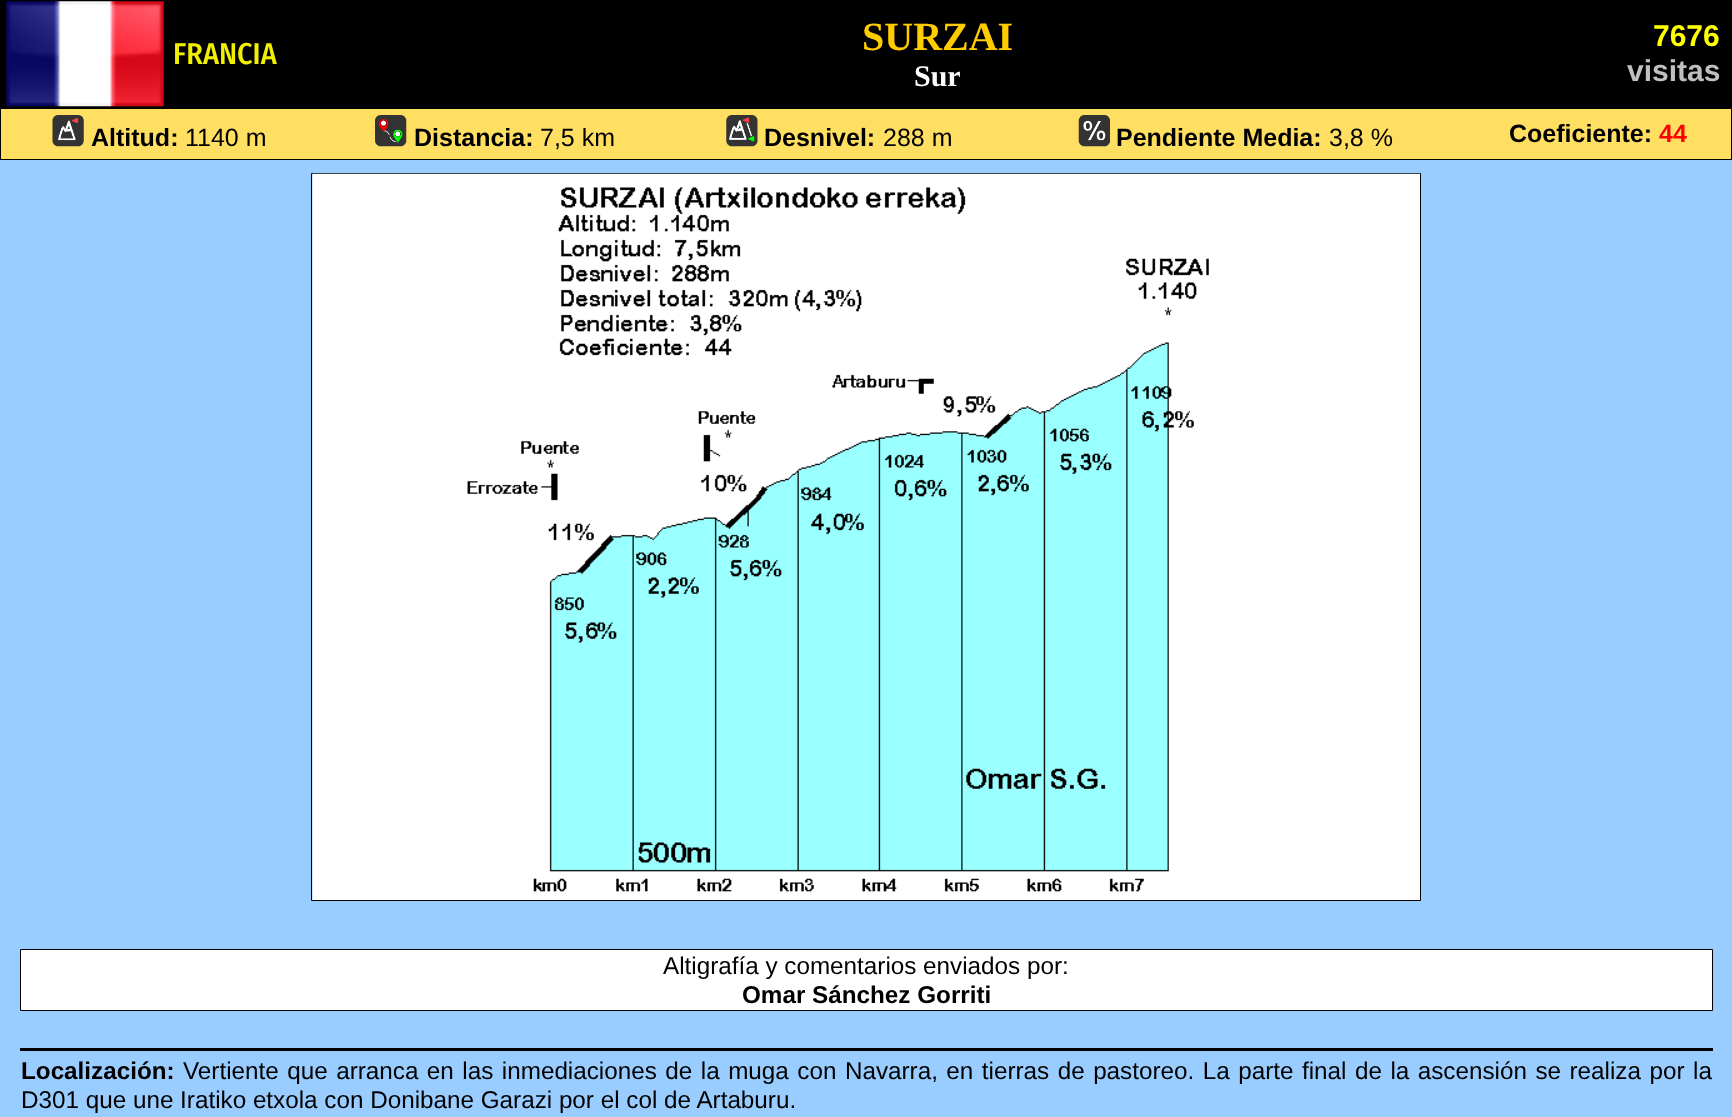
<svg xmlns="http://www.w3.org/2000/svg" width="1732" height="1117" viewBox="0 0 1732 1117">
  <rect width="100%" height="100%" fill="#9cf"/>
  <path d="M0 0h1732v160H0z" fill="#000"/>
  <image x="6" y="1" width="158" height="106" href="img/1.png"/>
  <path d="M1 109h1730v50H1z" fill="#ffdf62"/>
  <image x="52" y="115" width="32" height="32" href="img/2.png"/>
  <image x="375" y="115" width="32" height="32" href="img/3.png"/>
  <image x="726" y="115" width="32" height="32" href="img/4.png"/>
  <image x="1078" y="115" width="32" height="32" href="img/5.png"/>
  <path d="M311.5 173.5h1109v727H311.5z" fill="none" stroke="#000"/>
  <image x="312" y="173" width="1108" height="727" href="img/6.png"/>
  <path d="M20.5 949.5h1692v61H20.5z" fill="#fff" stroke="#000"/>
  <path d="M20 1048h1693v3H20z" fill="#000"/>
  <text x="173" y="64" font-family="Fira Sans Condensed" font-size="30" font-weight="500" fill="#f0f000">FRANCIA</text>
  <text x="862" y="50" font-family="Liberation Serif" font-size="40" font-weight="bold" fill="#fc0">SURZAI</text>
  <text x="914" y="86" font-family="Liberation Serif" font-size="30" font-weight="bold" fill="#fff">Sur</text>
  <text x="1653" y="46" font-family="Liberation Sans" font-size="30" font-weight="bold" fill="#ff0">7676</text>
  <text x="1627" y="81" font-family="Liberation Sans" font-size="30" font-weight="bold" fill="#c0c0c0">visitas</text>
  <text x="91" y="146" font-family="Liberation Sans" font-size="25" font-weight="bold" fill="#000">Altitud:</text>
  <text x="185" y="146" font-family="Liberation Sans" font-size="25" fill="#000">1140 m</text>
  <text x="414" y="146" font-family="Liberation Sans" font-size="25" font-weight="bold" fill="#000">Distancia:</text>
  <text x="540" y="146" font-family="Liberation Sans" font-size="25" fill="#000">7,5 km</text>
  <text x="764" y="146" font-family="Liberation Sans" font-size="25" font-weight="bold" fill="#000">Desnivel:</text>
  <text x="883" y="146" font-family="Liberation Sans" font-size="25" fill="#000">288 m</text>
  <text x="1116" y="146" font-family="Liberation Sans" font-size="25" font-weight="bold" fill="#000">Pendiente Media:</text>
  <text x="1329" y="146" font-family="Liberation Sans" font-size="25" fill="#000">3,8 %</text>
  <text x="1509" y="142" font-family="Liberation Sans" font-size="25" font-weight="bold" fill="#000">Coeficiente:</text>
  <text x="1659" y="142" font-family="Liberation Sans" font-size="25" font-weight="bold" fill="#f00">44</text>
  <text x="663" y="974" font-family="Liberation Sans" font-size="24.25" fill="#000">Altigrafía y comentarios enviados por:</text>
  <g font-family="Liberation Sans" font-size="24.25" font-weight="bold" fill="#000">
    <text x="742" y="1003">Omar Sánchez Gorriti</text>
    <text x="21" y="1079">Localización:</text>
  </g>
  <g font-family="Liberation Sans" font-size="24.25" fill="#000">
    <text x="183" y="1079" word-spacing="1.75">Vertiente que arranca en las inmediaciones de la muga con Navarra, en tierras de pastoreo. La parte final de la ascensión se realiza por la</text>
    <text x="21" y="1108">D301 que une Iratiko etxola con Donibane Garazi por el col de Artaburu.</text>
  </g>
</svg>
